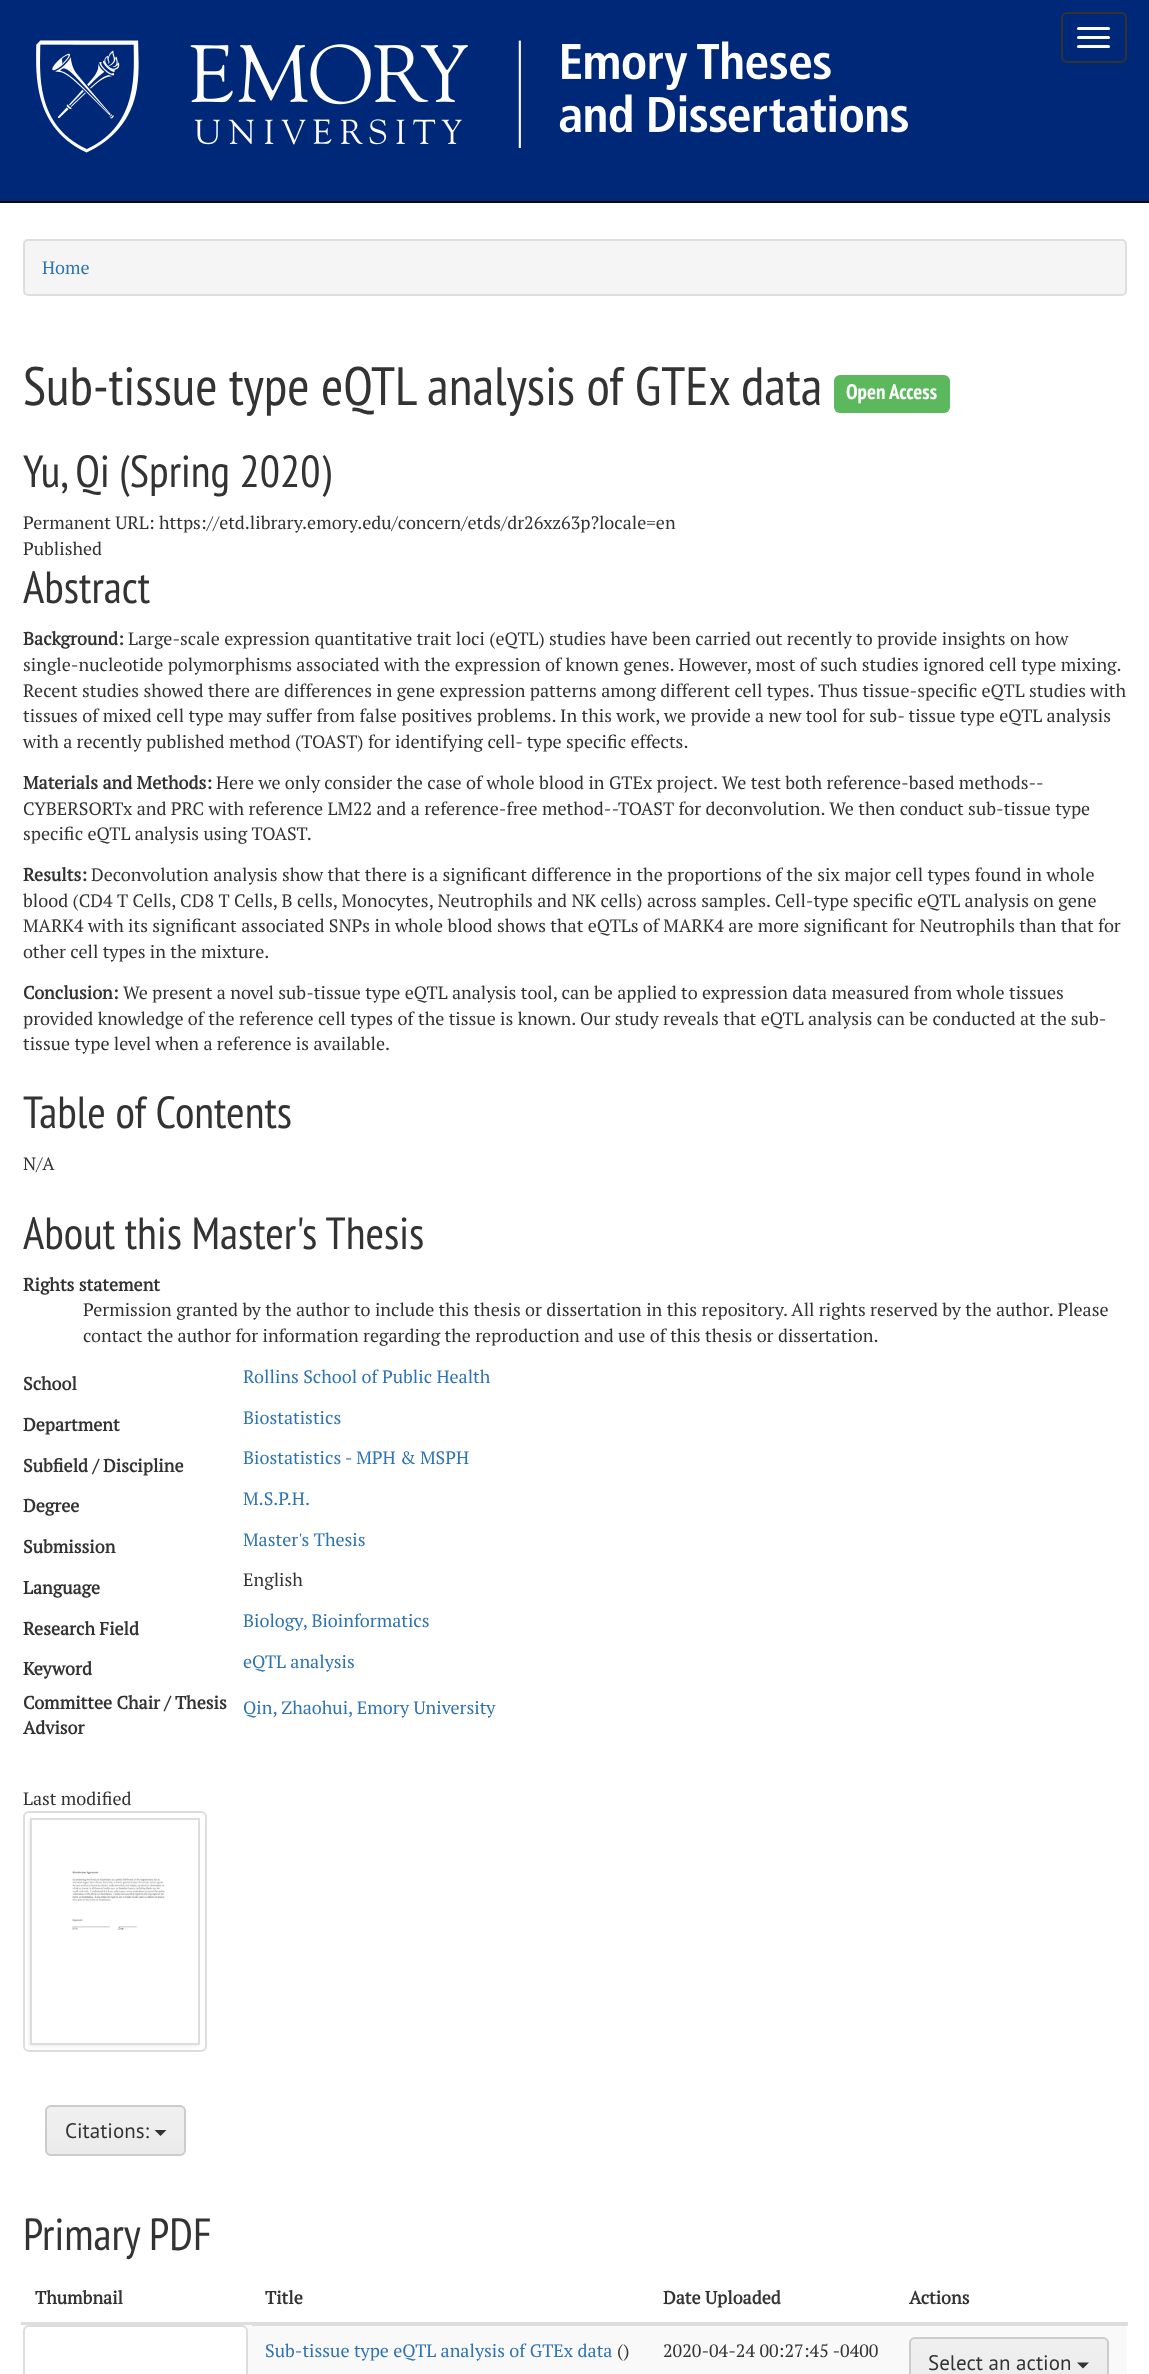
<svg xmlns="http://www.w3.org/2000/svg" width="1149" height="2374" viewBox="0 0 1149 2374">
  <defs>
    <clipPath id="clip1"><path d="M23 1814H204V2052H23ZM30 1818H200V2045H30Z" clip-rule="evenodd"/></clipPath>
    <clipPath id="clip2"><rect x="45" y="2105" width="141" height="51" rx="6"/></clipPath>
    <linearGradient id="g1" gradientUnits="userSpaceOnUse" x1="116" y1="2106" x2="116" y2="2154"><stop offset="0" stop-color="#fff" stop-opacity="0.25"/><stop offset="1" stop-color="#fff" stop-opacity="0"/></linearGradient>
    <clipPath id="clip3"><rect x="909" y="2337" width="200" height="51" rx="6"/></clipPath>
    <linearGradient id="g2" gradientUnits="userSpaceOnUse" x1="1009" y1="2339" x2="1009" y2="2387"><stop offset="0" stop-color="#fff" stop-opacity="0.25"/><stop offset="1" stop-color="#fff" stop-opacity="0"/></linearGradient>
  </defs>
  <rect width="100%" height="100%" fill="#fff"/>
  <path d="M0 0h1149v201H0z" fill="#002878"/>
  <path d="M0 201h1149v2H0z" fill="#090909"/>
  <image x="36" y="40" width="872" height="113" href="img/1.png"/>
  <rect x="1062" y="13" width="64" height="49" rx="5" fill="none" stroke="#333" stroke-width="2"/>
  <rect x="1077" y="27" width="33" height="3" rx="1.5" fill="#fff"/>
  <rect x="1077" y="36" width="33" height="3" rx="1.5" fill="#fff"/>
  <rect x="1077" y="45" width="33" height="3" rx="1.5" fill="#fff"/>
  <rect x="24" y="240" width="1102" height="55" rx="4" fill="#f5f5f5" stroke="#dedede" stroke-width="2"/>
  <rect x="834" y="375" width="116" height="38" rx="6" fill="#5cb85c"/>
  <rect x="24" y="1812" width="182" height="239" rx="5" fill="none" stroke="#ddd" stroke-width="2"/>
  <g clip-path="url(#clip1)">
    <path d="M29 1820h169v226H29z" fill="#00000014" filter="blur(1.5px)"/>
  </g>
  <path d="M31 1819h168v225H31z" fill="none" stroke="#ddd" stroke-width="2"/>
  <image x="72" y="1871" width="93" height="59" href="img/2.png"/>
  <rect x="45" y="2105" width="141" height="51" rx="6" fill="#ebebeb"/>
  <g clip-path="url(#clip2)">
    <path d="M45 2106h141v44H45z" fill="url(#g1)"/>
  </g>
  <rect x="46" y="2106" width="139" height="49" rx="5" fill="none" stroke="#ccc" stroke-width="2"/>
  <path d="M154.5 2130H166.5L160.5 2136Z" fill="#333"/>
  <path d="M21 2322h1107v3H21z" fill="#ddd"/>
  <path d="M23 2325h1104v49H23z" fill="#f9f9f9"/>
  <rect x="24" y="2326" width="223" height="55" rx="5" fill="#fff" stroke="#ddd" stroke-width="2"/>
  <path d="M252 2325h876v1H252z" fill="#ddd"/>
  <rect x="909" y="2337" width="200" height="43" rx="6" fill="#ebebeb"/>
  <g clip-path="url(#clip3)">
    <path d="M909 2339h200v35H909z" fill="url(#g2)"/>
  </g>
  <rect x="910" y="2338" width="198" height="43" rx="5" fill="none" stroke="#ccc" stroke-width="2"/>
  <path d="M1077 2362.5H1089L1083 2368.5Z" fill="#333"/>
  <text x="42" y="274" font-family="PT Serif" font-size="18" fill="#2e74b2">Home</text>
  <text x="23" y="405" font-family="PT Sans Narrow" font-size="54" fill="#333">Sub-tissue type eQTL analysis of GTEx data</text>
  <text x="846" y="399" font-family="PT Sans Narrow" font-size="21" font-weight="bold" fill="#fff">Open Access</text>
  <text x="23" y="487" font-family="PT Sans Narrow" font-size="45" fill="#333">Yu, Qi (Spring 2020)</text>
  <g font-family="PT Serif" font-size="18" fill="#333">
    <text x="23" y="529">Permanent URL: https://etd.library.emory.edu/concern/etds/dr26xz63p?locale=en</text>
    <text x="23" y="555">Published</text>
  </g>
  <text x="23" y="603" font-family="PT Sans Narrow" font-size="45" fill="#333">Abstract</text>
  <text x="23" y="645" font-family="PT Serif" font-size="18" font-weight="bold" fill="#333">Background:</text>
  <g font-family="PT Serif" font-size="18" fill="#333">
    <text x="128" y="645">Large-scale expression quantitative trait loci (eQTL) studies have been carried out recently to provide insights on how</text>
    <text x="23" y="671">single-nucleotide polymorphisms associated with the expression of known genes. However, most of such studies ignored cell type mixing.</text>
    <text x="23" y="697">Recent studies showed there are differences in gene expression patterns among different cell types. Thus tissue-specific eQTL studies with</text>
    <text x="23" y="722">tissues of mixed cell type may suffer from false positives problems. In this work, we provide a new tool for sub- tissue type eQTL analysis</text>
    <text x="23" y="748">with a recently published method (TOAST) for identifying cell- type specific effects.</text>
  </g>
  <text x="23" y="789" font-family="PT Serif" font-size="18" font-weight="bold" fill="#333">Materials and Methods:</text>
  <g font-family="PT Serif" font-size="18" fill="#333">
    <text x="216" y="789">Here we only consider the case of whole blood in GTEx project. We test both reference-based methods--</text>
    <text x="23" y="815">CYBERSORTx and PRC with reference LM22 and a reference-free method--TOAST for deconvolution. We then conduct sub-tissue type</text>
    <text x="23" y="840">specific eQTL analysis using TOAST.</text>
  </g>
  <text x="23" y="881" font-family="PT Serif" font-size="18" font-weight="bold" fill="#333">Results:</text>
  <g font-family="PT Serif" font-size="18" fill="#333">
    <text x="91" y="881">Deconvolution analysis show that there is a significant difference in the proportions of the six major cell types found in whole</text>
    <text x="23" y="907">blood (CD4 T Cells, CD8 T Cells, B cells, Monocytes, Neutrophils and NK cells) across samples. Cell-type specific eQTL analysis on gene</text>
    <text x="23" y="932">MARK4 with its significant associated SNPs in whole blood shows that eQTLs of MARK4 are more significant for Neutrophils than that for</text>
    <text x="23" y="958">other cell types in the mixture.</text>
  </g>
  <text x="23" y="999" font-family="PT Serif" font-size="18" font-weight="bold" fill="#333">Conclusion:</text>
  <g font-family="PT Serif" font-size="18" fill="#333">
    <text x="123" y="999">We present a novel sub-tissue type eQTL analysis tool, can be applied to expression data measured from whole tissues</text>
    <text x="23" y="1025">provided knowledge of the reference cell types of the tissue is known. Our study reveals that eQTL analysis can be conducted at the sub-</text>
    <text x="23" y="1050">tissue type level when a reference is available.</text>
  </g>
  <text x="23" y="1128" font-family="PT Sans Narrow" font-size="45" fill="#333">Table of Contents</text>
  <text x="23" y="1170" font-family="PT Serif" font-size="18" fill="#333">N/A</text>
  <text x="23" y="1249" font-family="PT Sans Narrow" font-size="45" fill="#333">About this Master's Thesis</text>
  <text x="23" y="1291" font-family="PT Serif" font-size="18" font-weight="bold" fill="#333">Rights statement</text>
  <g font-family="PT Serif" font-size="18" fill="#333">
    <text x="83" y="1316">Permission granted by the author to include this thesis or dissertation in this repository. All rights reserved by the author. Please</text>
    <text x="83" y="1342">contact the author for information regarding the reproduction and use of this thesis or dissertation.</text>
  </g>
  <text x="23" y="1390" font-family="PT Serif" font-size="18" font-weight="bold" fill="#333">School</text>
  <text x="243" y="1383" font-family="PT Serif" font-size="18" fill="#2e74b2">Rollins School of Public Health</text>
  <text x="23" y="1431" font-family="PT Serif" font-size="18" font-weight="bold" fill="#333">Department</text>
  <text x="243" y="1424" font-family="PT Serif" font-size="18" fill="#2e74b2">Biostatistics</text>
  <text x="23" y="1472" font-family="PT Serif" font-size="18" font-weight="bold" fill="#333">Subfield / Discipline</text>
  <text x="243" y="1464" font-family="PT Serif" font-size="18" fill="#2e74b2">Biostatistics - MPH &amp; MSPH</text>
  <text x="23" y="1512" font-family="PT Serif" font-size="18" font-weight="bold" fill="#333">Degree</text>
  <text x="243" y="1505" font-family="PT Serif" font-size="18" fill="#2e74b2">M.S.P.H.</text>
  <text x="23" y="1553" font-family="PT Serif" font-size="18" font-weight="bold" fill="#333">Submission</text>
  <text x="243" y="1546" font-family="PT Serif" font-size="18" fill="#2e74b2">Master's Thesis</text>
  <text x="23" y="1594" font-family="PT Serif" font-size="18" font-weight="bold" fill="#333">Language</text>
  <text x="243" y="1586" font-family="PT Serif" font-size="18" fill="#333">English</text>
  <text x="23" y="1635" font-family="PT Serif" font-size="18" font-weight="bold" fill="#333">Research Field</text>
  <text x="243" y="1627" font-family="PT Serif" font-size="18" fill="#2e74b2">Biology, Bioinformatics</text>
  <text x="23" y="1675" font-family="PT Serif" font-size="18" font-weight="bold" fill="#333">Keyword</text>
  <text x="243" y="1668" font-family="PT Serif" font-size="18" fill="#2e74b2">eQTL analysis</text>
  <g font-family="PT Serif" font-size="18" font-weight="bold" fill="#333">
    <text x="23" y="1709">Committee Chair / Thesis</text>
    <text x="23" y="1734">Advisor</text>
  </g>
  <text x="243" y="1714" font-family="PT Serif" font-size="18" fill="#2e74b2">Qin, Zhaohui, Emory University</text>
  <text x="23" y="1805" font-family="PT Serif" font-size="18" fill="#333">Last modified</text>
  <text x="65" y="2138" font-family="PT Sans" font-size="21" fill="#333">Citations:</text>
  <text x="23" y="2250" font-family="PT Sans Narrow" font-size="45" fill="#333">Primary PDF</text>
  <g font-family="PT Serif" font-size="18" font-weight="bold" fill="#333">
    <text x="35" y="2304">Thumbnail</text>
    <text x="265" y="2304">Title</text>
    <text x="663" y="2304">Date Uploaded</text>
    <text x="909" y="2304">Actions</text>
  </g>
  <text x="265" y="2357" font-family="PT Serif" font-size="18" fill="#2e74b2">Sub-tissue type eQTL analysis of GTEx data</text>
  <g font-family="PT Serif" font-size="18" fill="#333">
    <text x="617" y="2357">()</text>
    <text x="663" y="2357">2020-04-24 00:27:45 -0400</text>
  </g>
  <text x="928" y="2370" font-family="PT Sans" font-size="21" fill="#333">Select an action</text>
</svg>
